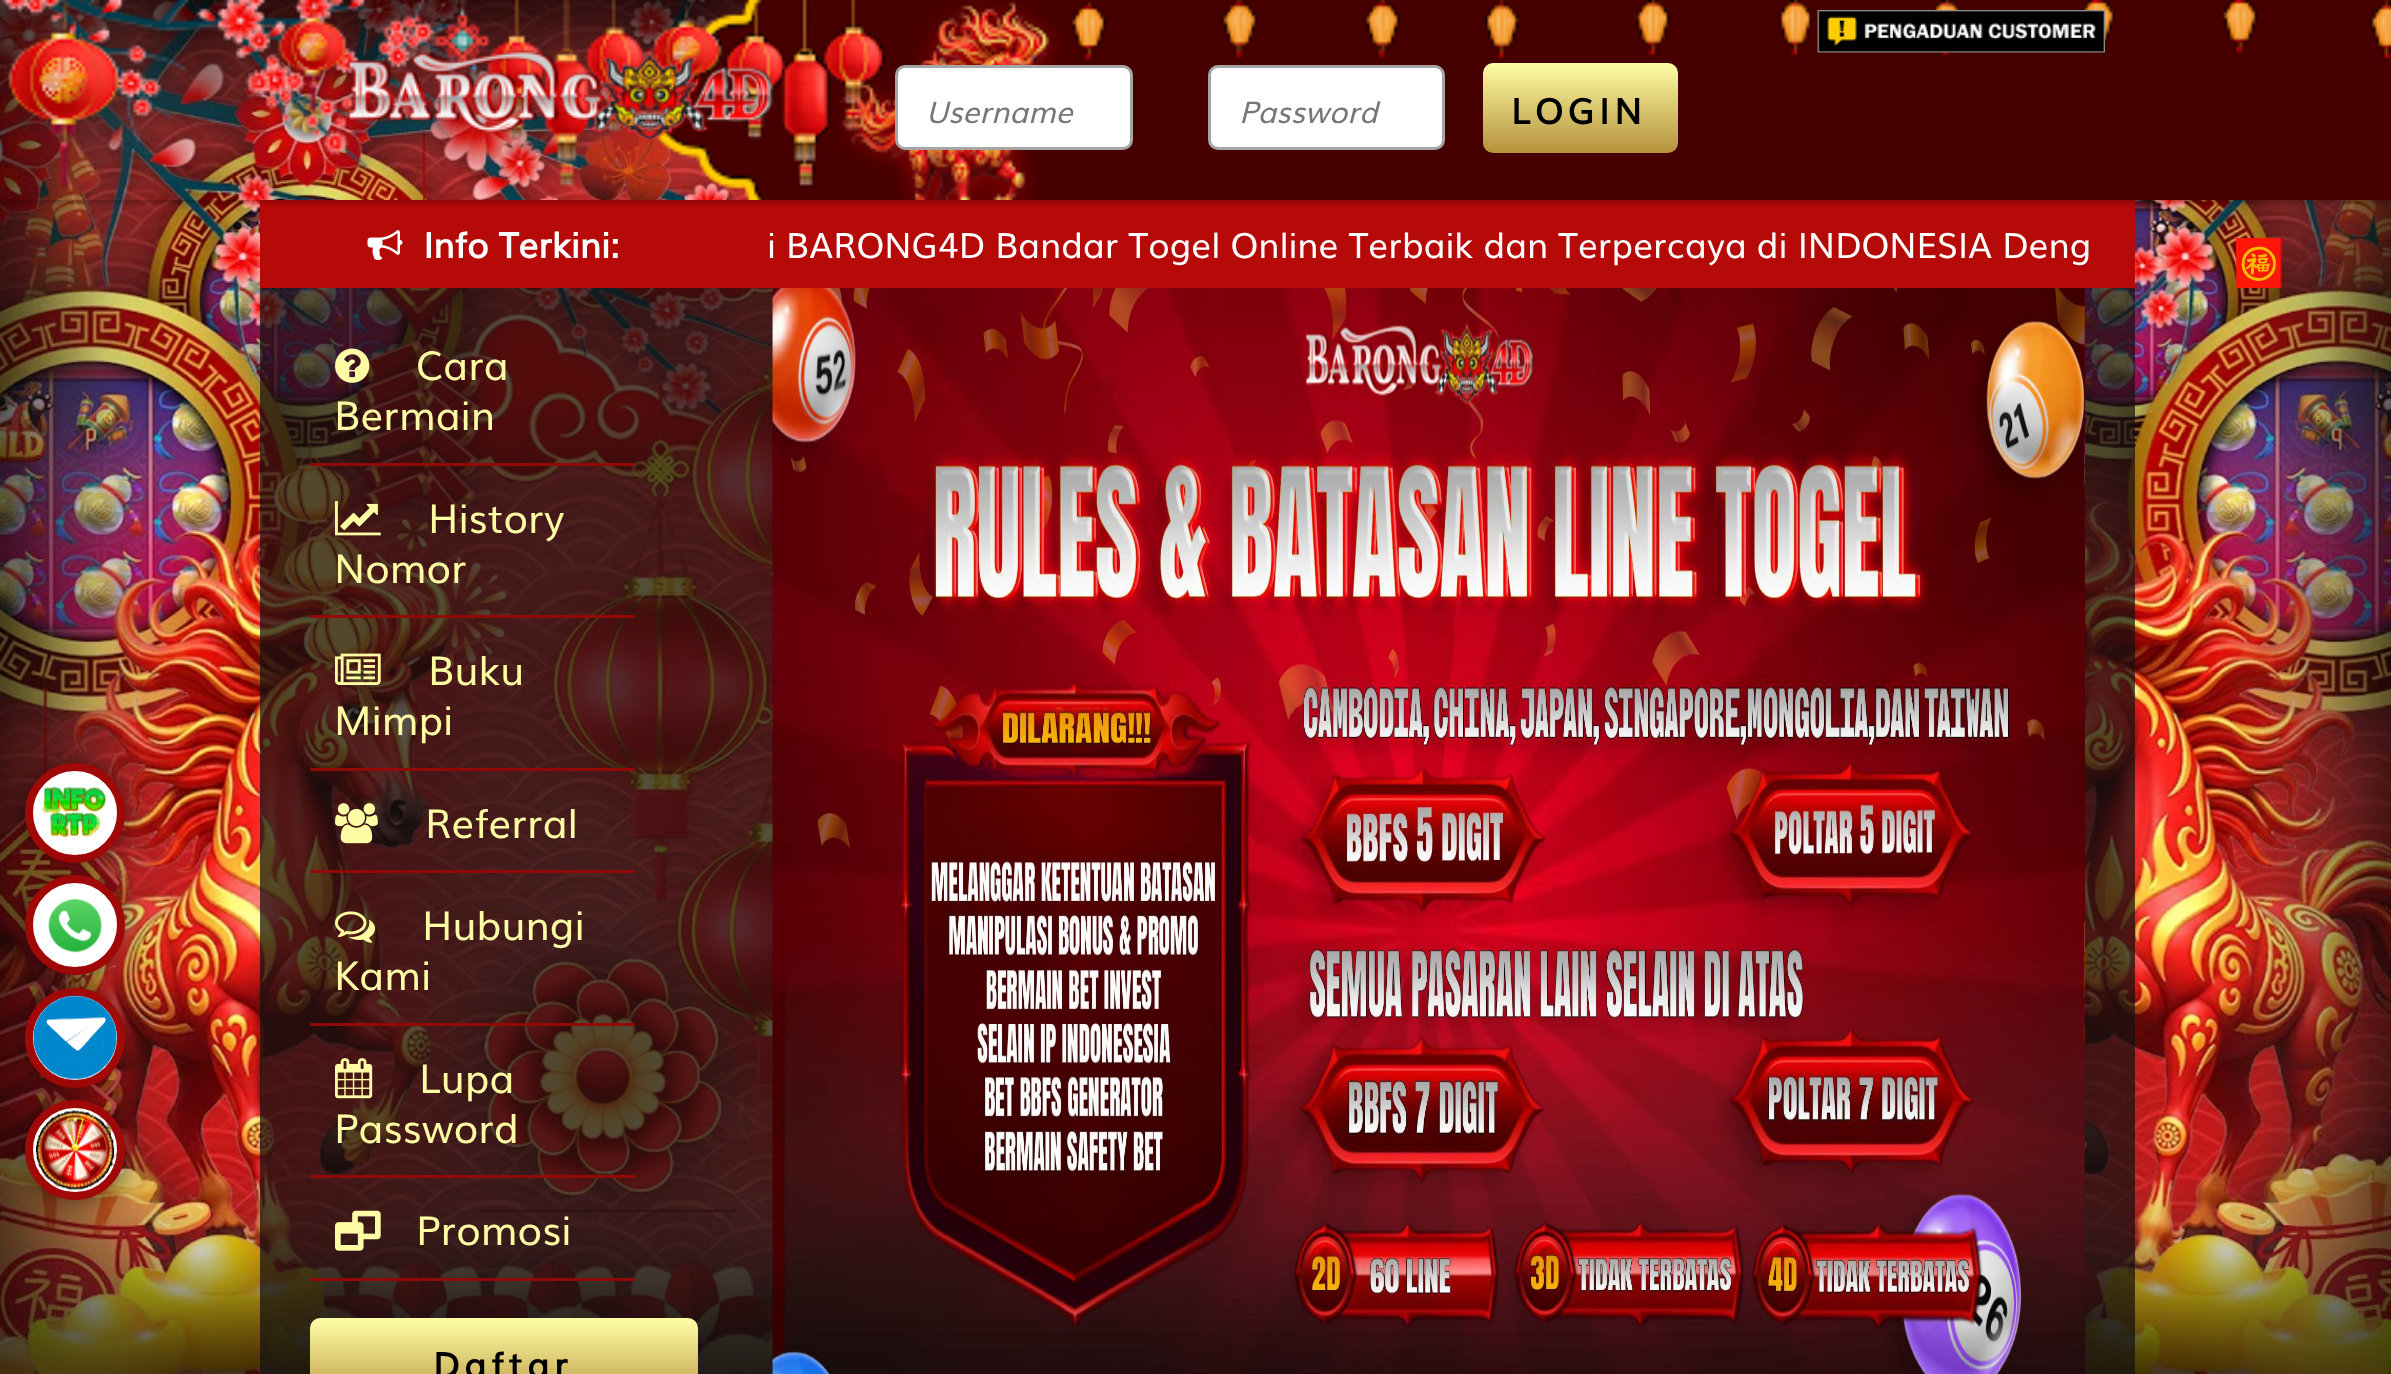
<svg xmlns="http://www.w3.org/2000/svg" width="2391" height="1374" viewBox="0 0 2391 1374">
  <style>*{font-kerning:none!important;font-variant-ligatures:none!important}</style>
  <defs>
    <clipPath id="clip1"><path d="M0 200h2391v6H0z"/></clipPath>
    <linearGradient id="g1" gradientUnits="userSpaceOnUse" x1="1580" y1="62" x2="1580" y2="153"><stop offset="0" stop-color="#fffea6"/><stop offset="1" stop-color="#b5913b"/></linearGradient>
    <linearGradient id="g2" gradientUnits="userSpaceOnUse" x1="504" y1="1318" x2="504" y2="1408"><stop offset="0" stop-color="#fffea6"/><stop offset="1" stop-color="#b5913b"/></linearGradient>
    <clipPath id="clip2"><path d="M2213 238h92v50H2213z"/></clipPath>
  </defs>
  <rect width="100%" height="100%" fill="#fff"/>
  <image x="0" y="0" width="2391" height="1374" href="img/1.png"/>
  <path d="M260 200h1875v88H260z" fill="#b50a08"/>
  <g clip-path="url(#clip1)">
    <path d="M0 3h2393v200H0z" fill="#00000033" filter="blur(2.5px)"/>
  </g>
  <image x="2" y="0" width="2389" height="200" href="img/3.png"/>
  <image x="1817" y="10" width="288" height="43" href="img/2.png"/>
  <image x="346" y="47" width="428" height="96" href="img/4.png"/>
  <rect x="896.5" y="66.5" width="235" height="82" rx="8.5" fill="#fff" stroke="#a5a5a5" stroke-width="3"/>
  <rect x="1209.5" y="66.5" width="234" height="82" rx="8.5" fill="#fff" stroke="#a5a5a5" stroke-width="3"/>
  <rect x="1483" y="63" width="195" height="90" rx="10" fill="url(#g1)"/>
  <image x="367" y="230" width="36" height="30" href="img/5.png"/>
  <path d="M260 288h1875v1086H260z" fill="#141111ba"/>
  <rect x="25" y="763" width="100" height="100" rx="50" fill="#00000080" filter="blur(12.5px)"/>
  <circle cx="75" cy="813" r="46" fill="#fff" stroke="#a10808" stroke-width="8"/>
  <image x="42" y="786" width="65" height="52" href="img/6.png"/>
  <rect x="25" y="875" width="100" height="100" rx="50" fill="#00000080" filter="blur(12.5px)"/>
  <circle cx="75" cy="925" r="46" fill="#fff" stroke="#a10808" stroke-width="8"/>
  <image x="48" y="898" width="54" height="55" href="img/7.png"/>
  <rect x="25" y="988" width="100" height="100" rx="50" fill="#00000080" filter="blur(12.5px)"/>
  <circle cx="75" cy="1038" r="46" fill="#fff" stroke="#a10808" stroke-width="8"/>
  <image x="33" y="995" width="84" height="85" href="img/8.png"/>
  <rect x="25" y="1100" width="100" height="100" rx="50" fill="#00000080" filter="blur(12.5px)"/>
  <circle cx="75" cy="1150" r="46" fill="#fff" stroke="#a10808" stroke-width="8"/>
  <image x="36" y="1110" width="81" height="80" href="img/9.png"/>
  <image x="772" y="288" width="1313" height="1086" href="img/10.png"/>
  <image x="2084" y="288" width="1" height="1084" href="img/11.png"/>
  <path d="M310 463h325v3H310z" fill="#910a08"/>
  <image x="335" y="348" width="35" height="35" href="img/12.png"/>
  <path d="M310 615h325v3H310z" fill="#910a08"/>
  <image x="335" y="501" width="46" height="35" href="img/13.png"/>
  <path d="M310 768h325v3H310z" fill="#910a08"/>
  <image x="335" y="653" width="46" height="32" href="img/14.png"/>
  <path d="M310 870h325v3H310z" fill="#910a08"/>
  <image x="335" y="803" width="43" height="41" href="img/15.png"/>
  <path d="M310 1023h325v3H310z" fill="#910a08"/>
  <image x="335" y="911" width="40" height="32" href="img/16.png"/>
  <path d="M310 1175h325v3H310z" fill="#910a08"/>
  <image x="335" y="1058" width="38" height="41" href="img/17.png"/>
  <path d="M310 1278h325v3H310z" fill="#910a08"/>
  <image x="335" y="1210" width="46" height="41" href="img/18.png"/>
  <rect x="310" y="1318" width="388" height="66" rx="10" fill="url(#g2)"/>
  <g font-family="Muli" font-size="30" font-style="italic" fill="#777">
    <text x="926" y="123">Username</text>
    <text x="1239" y="123">Password</text>
  </g>
  <text x="1511" y="124" font-family="Muli" font-size="35" font-weight="bold" letter-spacing="5" fill="#000">LOGIN</text>
  <text x="423" y="258" font-family="Muli" font-size="35" font-weight="bold" fill="#fff">Info Terkini:</text>
  <text x="767" y="258" font-family="Muli" font-size="35" fill="#fff">i BARONG4D Bandar Togel Online Terbaik dan Terpercaya di INDONESIA Deng</text>
  <g font-family="Muli" font-size="40" fill="#fdfba3">
    <text x="416" y="380">Cara</text>
    <text x="334" y="430">Bermain</text>
    <text x="428" y="533">History</text>
    <text x="334" y="583">Nomor</text>
    <text x="428" y="685">Buku</text>
    <text x="334" y="735">Mimpi</text>
    <text x="425" y="838">Referral</text>
    <text x="422" y="940">Hubungi</text>
    <text x="334" y="990">Kami</text>
    <text x="419" y="1093">Lupa</text>
    <text x="334" y="1143">Password</text>
    <text x="416" y="1245">Promosi</text>
  </g>
  <text x="433" y="1378" font-family="Muli" font-size="35" font-weight="bold" letter-spacing="5" fill="#000">Daftar</text>
  <g clip-path="url(#clip2)">
    <text x="2219" y="287" font-family="Noto Color Emoji" font-size="65" fill="#f0f8ff">🧧</text>
  </g>
</svg>
